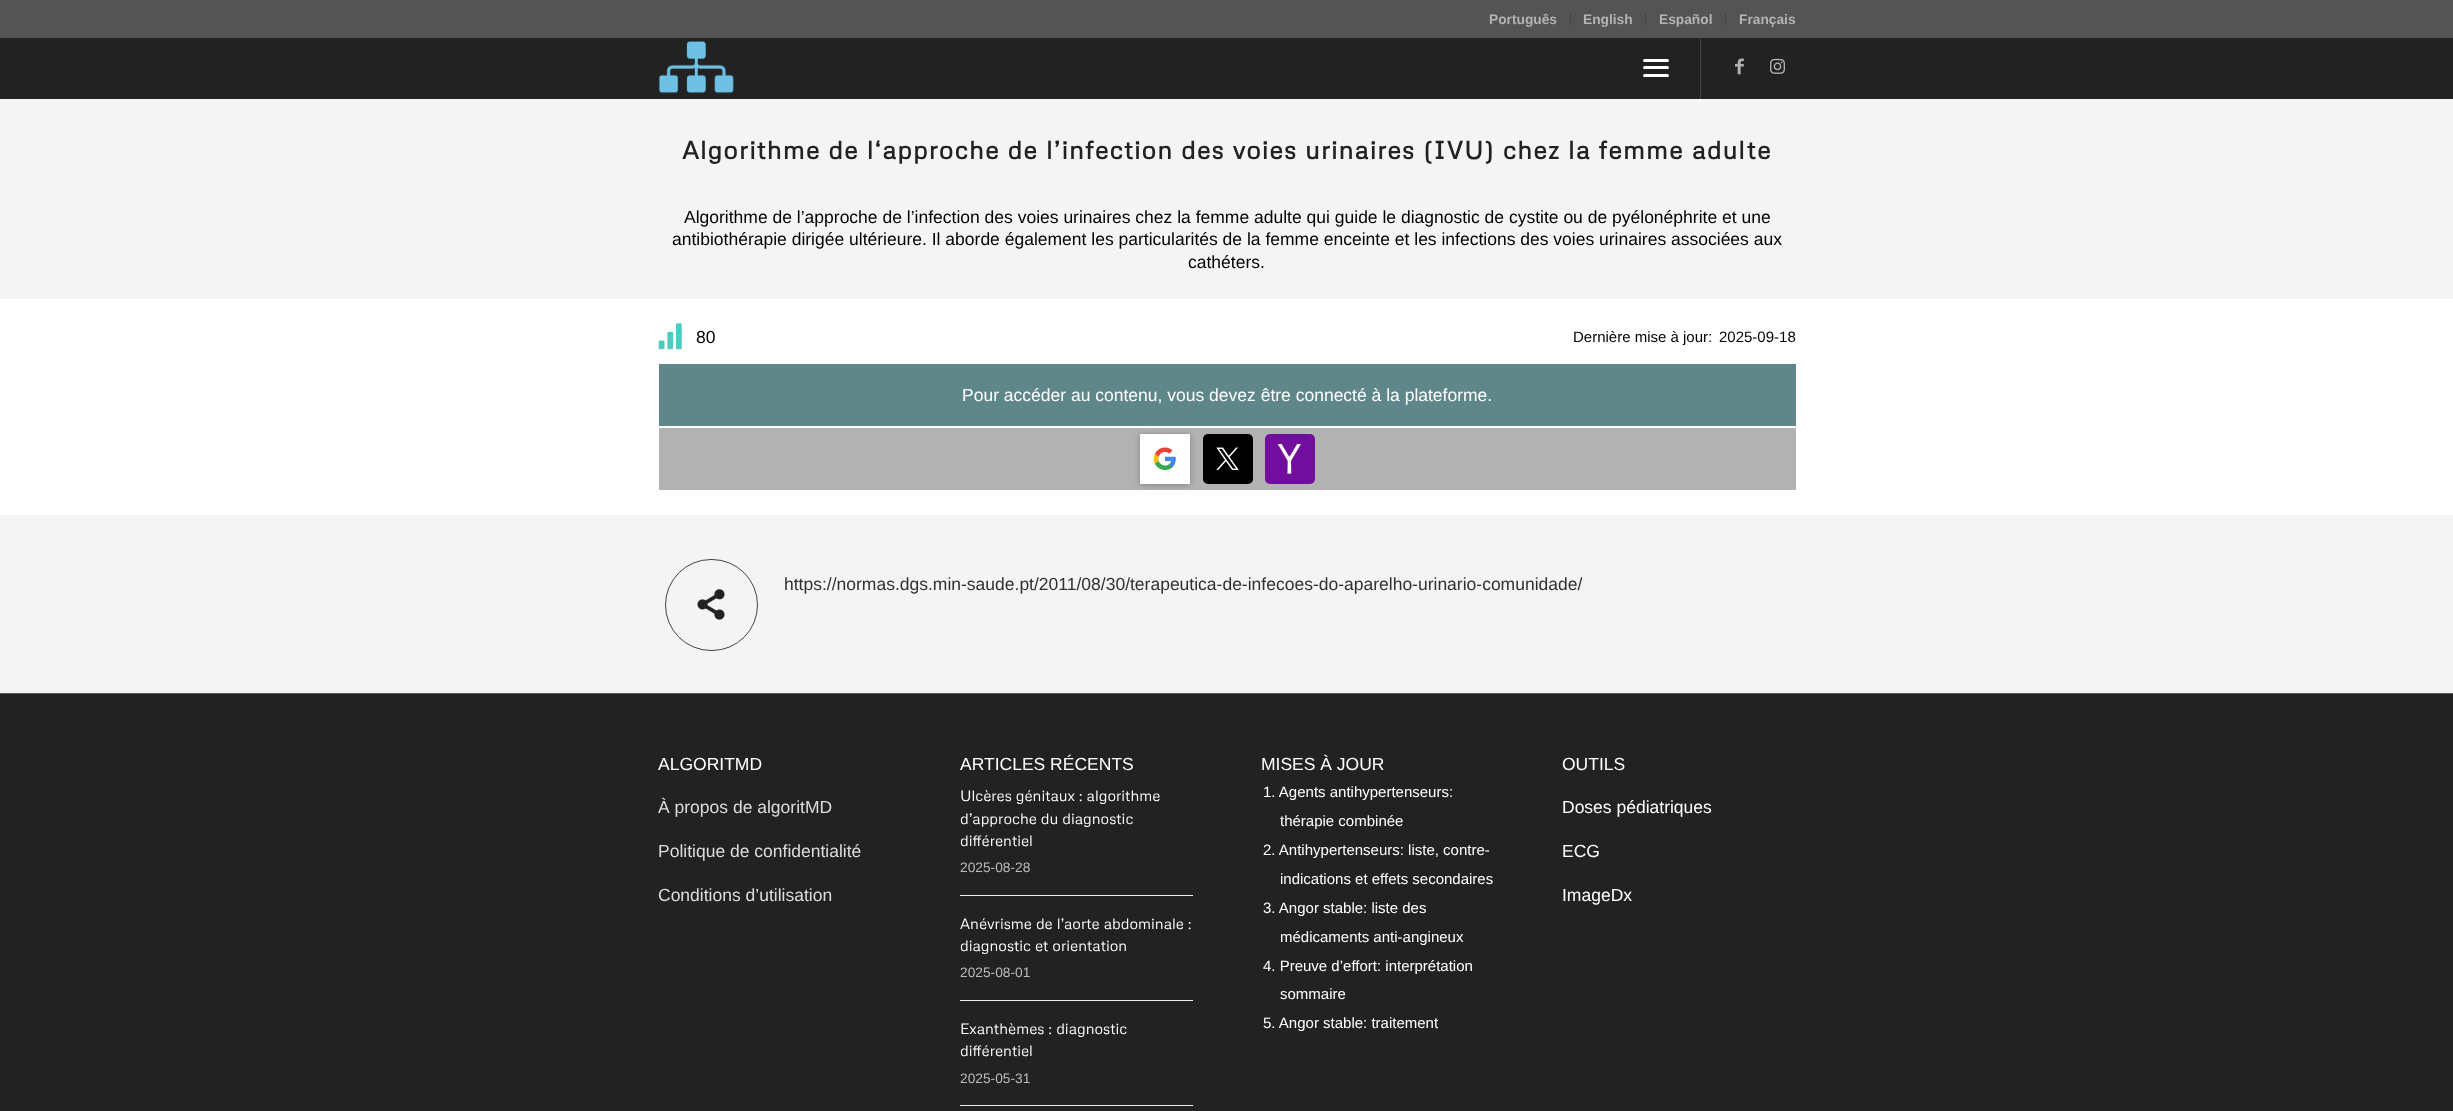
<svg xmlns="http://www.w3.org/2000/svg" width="2453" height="1111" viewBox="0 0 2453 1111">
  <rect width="100%" height="100%" fill="#222"/>
  <path d="M1700 36h1v63H1700z" fill="#444"/>
  <path d="M0 0h2453v38H0z" fill="#545454"/>
  <path d="M1570 13h1v12H1570z" fill="#444"/>
  <path d="M1645 13h1v12H1645z" fill="#444"/>
  <path d="M1725 13h1v12H1725z" fill="#444"/>
  <image x="658" y="41" width="76" height="53" href="img/1.png"/>
  <rect x="1643" y="66" width="26" height="3" rx="1.5" fill="#fff"/>
  <rect x="1643" y="59" width="26" height="3" rx="1.5" fill="#fff"/>
  <rect x="1643" y="74" width="26" height="3" rx="1.5" fill="#fff"/>
  <image x="1735" y="58" width="9" height="17" href="img/2.png"/>
  <image x="1770" y="58" width="15" height="16" href="img/3.png"/>
  <path d="M0 99h2453v200H0z" fill="#f4f4f4"/>
  <path d="M0 299h2453v216H0z" fill="#fff"/>
  <image x="658" y="323" width="24" height="27" href="img/4.png"/>
  <path d="M659 364h1137v62H659z" fill="#5f8789"/>
  <path d="M659 428h1137v62H659z" fill="#b2b2b2"/>
  <rect x="1140" y="435" width="50" height="50" rx="1" fill="#00000040" filter="blur(3px)"/>
  <rect x="1140" y="434" width="50" height="50" rx="1" fill="#fff"/>
  <image x="1153" y="447" width="23" height="23" href="img/5.png"/>
  <rect x="1203" y="434" width="50" height="50" rx="5" fill="#000"/>
  <image x="1216" y="447" width="23" height="23" href="img/6.png"/>
  <rect x="1265" y="434" width="50" height="50" rx="5" fill="#720e9e"/>
  <image x="1277" y="444" width="24" height="30" href="img/7.png"/>
  <path d="M0 515h2453v178H0z" fill="#f4f4f4"/>
  <rect x="665.5" y="559.5" width="92" height="91" rx="45.5" fill="none" stroke="#444"/>
  <image x="697" y="589" width="28" height="31" href="img/8.png"/>
  <path d="M0 693h2453v1H0z" fill="#555"/>
  <path d="M960 895h233v1H960z" fill="#eee"/>
  <path d="M960 1000h233v1H960z" fill="#eee"/>
  <path d="M960 1105h233v1H960z" fill="#eee"/>
  <g font-family="Liberation Sans" font-size="13.75" font-weight="bold" fill="#b3b3b3">
    <text x="1489" y="24">Português</text>
    <text x="1583" y="24">English</text>
    <text x="1659" y="24">Español</text>
    <text x="1739" y="24">Français</text>
  </g>
  <text x="682" y="159" font-family="Metrophobic" font-size="25" font-weight="bold" letter-spacing="1.25" fill="#222">Algorithme de l‘approche de l’infection des voies urinaires (IVU) chez la femme adulte</text>
  <g font-family="Liberation Sans" font-size="17.5" fill="#000">
    <text x="684" y="223">Algorithme de l’approche de l’infection des voies urinaires chez la femme adulte qui guide le diagnostic de cystite ou de pyélonéphrite et une</text>
    <text x="672" y="245">antibiothérapie dirigée ultérieure. Il aborde également les particularités de la femme enceinte et les infections des voies urinaires associées aux</text>
    <text x="1188" y="268">cathéters.</text>
    <text x="696" y="343">80</text>
  </g>
  <g font-family="Liberation Sans" font-size="15" fill="#000">
    <text x="1573" y="342">Dernière mise à jour:</text>
    <text x="1719" y="342">2025-09-18</text>
  </g>
  <text x="962" y="401" font-family="Liberation Sans" font-size="17.5" fill="#fff">Pour accéder au contenu, vous devez être connecté à la plateforme.</text>
  <text x="784" y="590" font-family="Liberation Sans" font-size="17.5" fill="#303030">https://normas.dgs.min-saude.pt/2011/08/30/terapeutica-de-infecoes-do-aparelho-urinario-comunidade/</text>
  <text x="658" y="770" font-family="Liberation Sans" font-size="17.5" fill="#fff">ALGORITMD</text>
  <g font-family="Liberation Sans" font-size="17.5" fill="#ddd">
    <text x="658" y="813">À propos de algoritMD</text>
    <text x="658" y="857">Politique de confidentialité</text>
    <text x="658" y="901">Conditions d’utilisation</text>
  </g>
  <text x="960" y="770" font-family="Liberation Sans" font-size="17.5" fill="#fff">ARTICLES RÉCENTS</text>
  <g font-family="Metrophobic" font-size="15" fill="#fff">
    <text x="960" y="801">Ulcères génitaux : algorithme</text>
    <text x="960" y="824">d’approche du diagnostic</text>
    <text x="960" y="846">différentiel</text>
  </g>
  <text x="960" y="872" font-family="Liberation Sans" font-size="13.75" fill="#bbb">2025-08-28</text>
  <g font-family="Metrophobic" font-size="15" fill="#fff">
    <text x="960" y="929">Anévrisme de l’aorte abdominale :</text>
    <text x="960" y="951">diagnostic et orientation</text>
  </g>
  <text x="960" y="977" font-family="Liberation Sans" font-size="13.75" fill="#bbb">2025-08-01</text>
  <g font-family="Metrophobic" font-size="15" fill="#fff">
    <text x="960" y="1034">Exanthèmes : diagnostic</text>
    <text x="960" y="1056">différentiel</text>
  </g>
  <text x="960" y="1083" font-family="Liberation Sans" font-size="13.75" fill="#bbb">2025-05-31</text>
  <text x="1261" y="770" font-family="Liberation Sans" font-size="17.5" fill="#fff">MISES À JOUR</text>
  <g font-family="Liberation Sans" font-size="15" fill="#fff">
    <text x="1263" y="797">1. Agents antihypertenseurs:</text>
    <text x="1280" y="826">thérapie combinée</text>
    <text x="1263" y="855">2. Antihypertenseurs: liste, contre-</text>
    <text x="1280" y="884">indications et effets secondaires</text>
    <text x="1263" y="913">3. Angor stable: liste des</text>
    <text x="1280" y="942">médicaments anti-angineux</text>
    <text x="1263" y="971">4. Preuve d’effort: interprétation</text>
    <text x="1280" y="999">sommaire</text>
    <text x="1263" y="1028">5. Angor stable: traitement</text>
  </g>
  <g font-family="Liberation Sans" font-size="17.5" fill="#fff">
    <text x="1562" y="770">OUTILS</text>
    <text x="1562" y="813">Doses pédiatriques</text>
    <text x="1562" y="857">ECG</text>
    <text x="1562" y="901">ImageDx</text>
  </g>
</svg>
